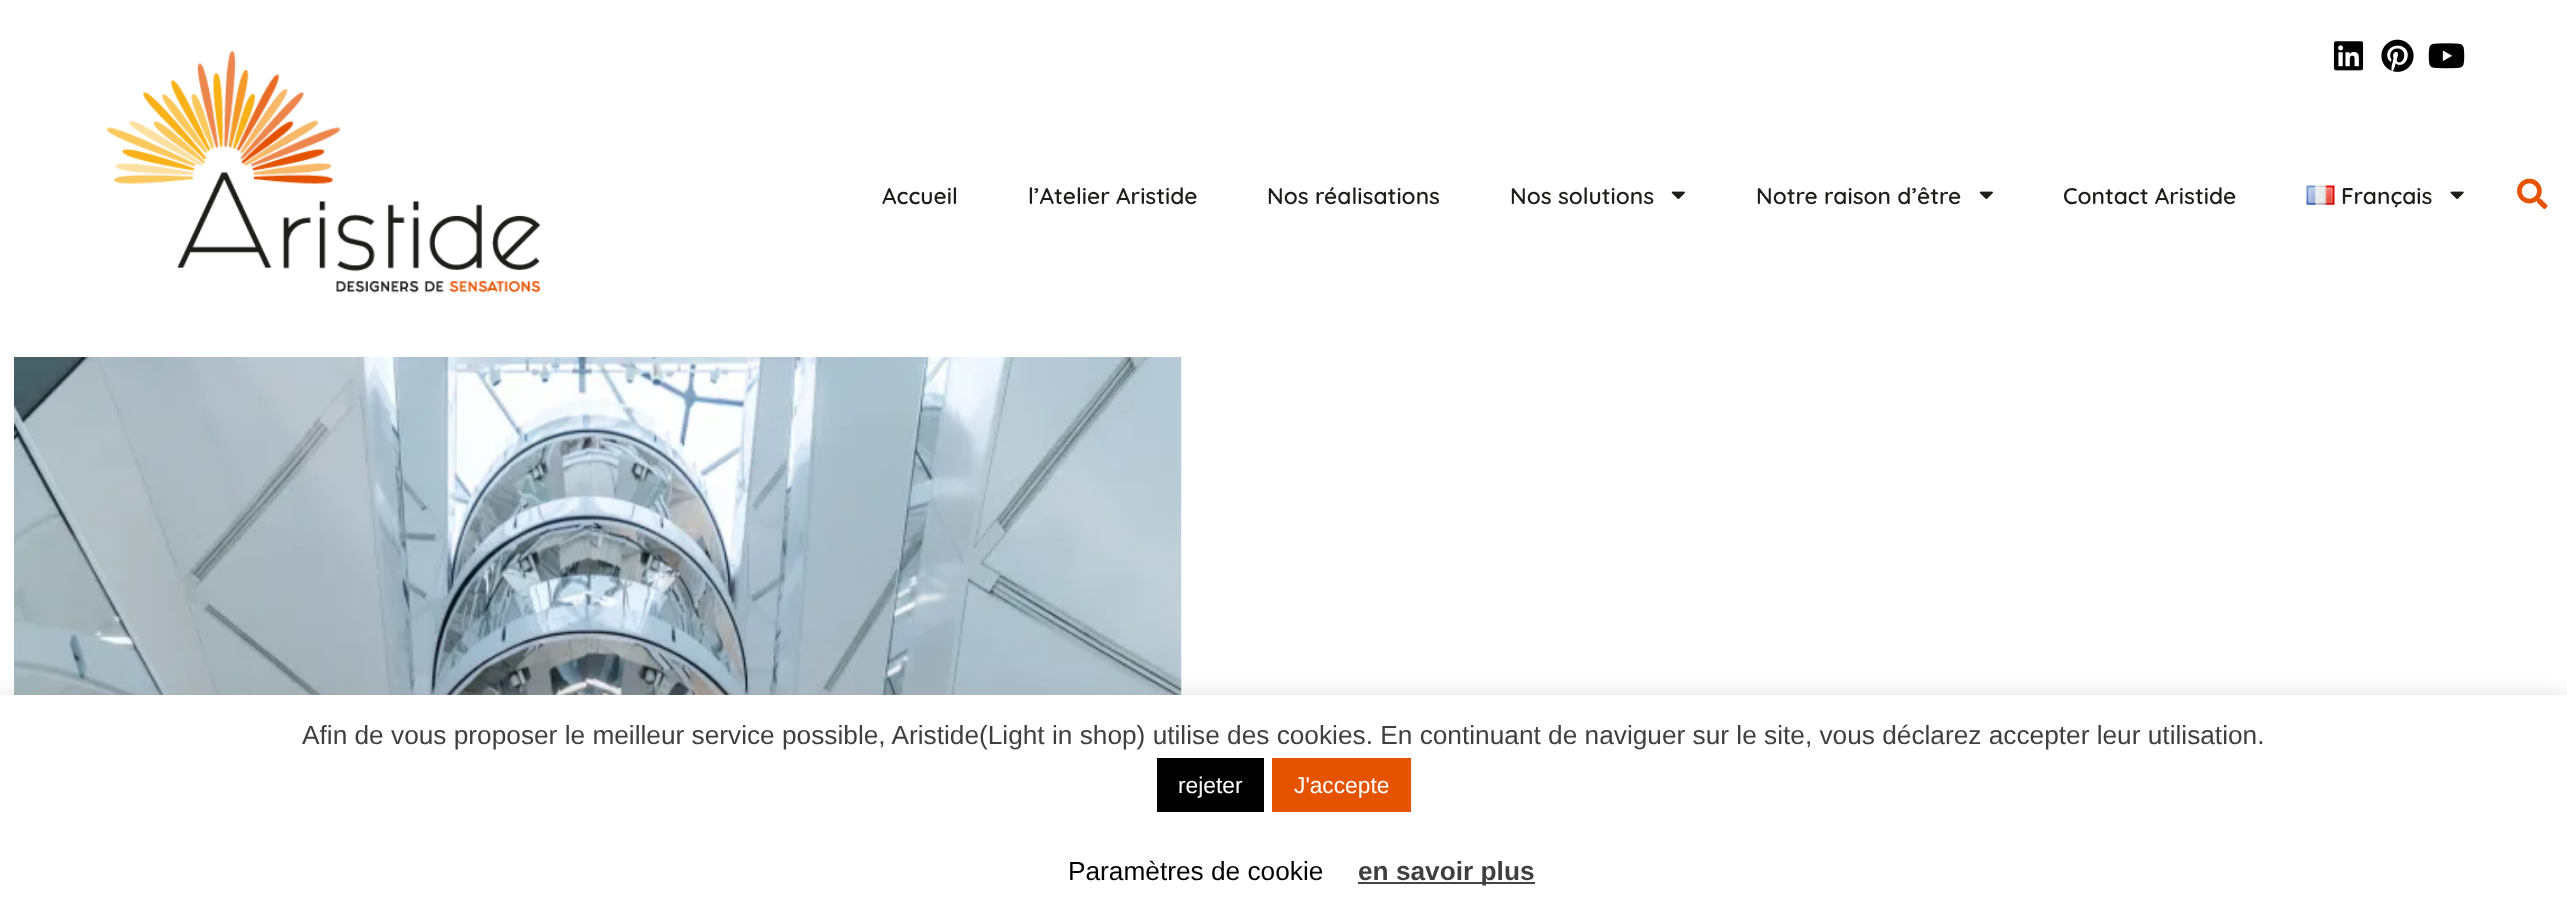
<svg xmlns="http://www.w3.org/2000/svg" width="2567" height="906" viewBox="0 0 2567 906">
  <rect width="100%" height="100%" fill="#fff"/>
  <image x="106" y="51" width="435" height="242" href="img/1.png"/>
  <image x="2333" y="41" width="31" height="30" href="img/2.png"/>
  <image x="2381" y="39" width="33" height="33" href="img/3.png"/>
  <image x="2428" y="43" width="37" height="26" href="img/4.png"/>
  <image x="1671" y="191" width="14" height="9" href="img/5.png"/>
  <image x="1979" y="191" width="14" height="9" href="img/5.png"/>
  <image x="2306" y="185" width="29" height="20" href="img/6.png"/>
  <image x="2450" y="191" width="14" height="9" href="img/7.png"/>
  <image x="2517" y="178" width="31" height="32" href="img/8.png"/>
  <image x="14" y="357" width="1168" height="338" href="img/9.png"/>
  <path d="M0 693h2567v212H0z" fill="#acabab4d" filter="blur(9px)"/>
  <path d="M0 695h2567v211H0z" fill="#fff"/>
  <path d="M1157 758h107v54H1157z" fill="#000"/>
  <path d="M1272 758h139v54H1272z" fill="#e65300"/>
  <path d="M1358 882h177v2H1358z" fill="#444"/>
  <g font-family="Quicksand" font-size="22.75" font-weight="600" fill="#1d1d1b">
    <text x="882" y="204">Accueil</text>
    <text x="1028" y="204">l’Atelier Aristide</text>
    <text x="1267" y="204">Nos réalisations</text>
    <text x="1510" y="204">Nos solutions</text>
    <text x="1756" y="204">Notre raison d’être</text>
    <text x="2063" y="204">Contact Aristide</text>
    <text x="2341" y="204">Français</text>
  </g>
  <text x="302" y="744" font-family="Liberation Sans" font-size="26.25" fill="#3f3f3f">Afin de vous proposer le meilleur service possible, Aristide(Light in shop) utilise des cookies. En continuant de naviguer sur le site, vous déclarez accepter leur utilisation.</text>
  <g font-family="Liberation Sans" font-size="22.75" fill="#fff">
    <text x="1178" y="793">rejeter</text>
    <text x="1294" y="793">J'accepte</text>
  </g>
  <text x="1068" y="880" font-family="Liberation Sans" font-size="26.25" fill="#000">Paramètres de cookie</text>
  <text x="1358" y="880" font-family="Liberation Sans" font-size="26.25" font-weight="bold" fill="#3f3f3f">en savoir plus</text>
</svg>
